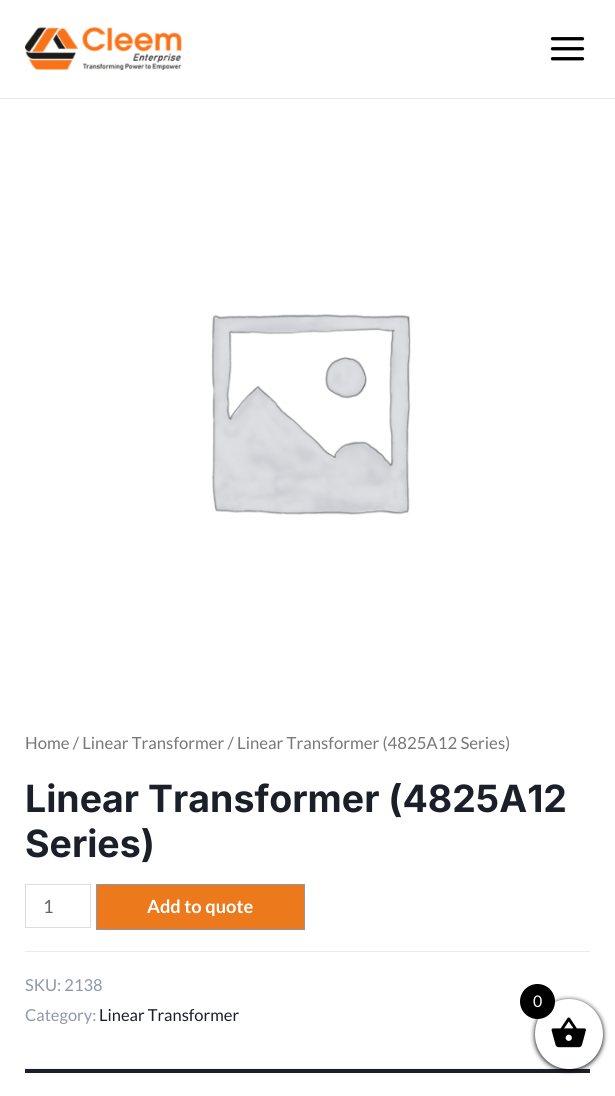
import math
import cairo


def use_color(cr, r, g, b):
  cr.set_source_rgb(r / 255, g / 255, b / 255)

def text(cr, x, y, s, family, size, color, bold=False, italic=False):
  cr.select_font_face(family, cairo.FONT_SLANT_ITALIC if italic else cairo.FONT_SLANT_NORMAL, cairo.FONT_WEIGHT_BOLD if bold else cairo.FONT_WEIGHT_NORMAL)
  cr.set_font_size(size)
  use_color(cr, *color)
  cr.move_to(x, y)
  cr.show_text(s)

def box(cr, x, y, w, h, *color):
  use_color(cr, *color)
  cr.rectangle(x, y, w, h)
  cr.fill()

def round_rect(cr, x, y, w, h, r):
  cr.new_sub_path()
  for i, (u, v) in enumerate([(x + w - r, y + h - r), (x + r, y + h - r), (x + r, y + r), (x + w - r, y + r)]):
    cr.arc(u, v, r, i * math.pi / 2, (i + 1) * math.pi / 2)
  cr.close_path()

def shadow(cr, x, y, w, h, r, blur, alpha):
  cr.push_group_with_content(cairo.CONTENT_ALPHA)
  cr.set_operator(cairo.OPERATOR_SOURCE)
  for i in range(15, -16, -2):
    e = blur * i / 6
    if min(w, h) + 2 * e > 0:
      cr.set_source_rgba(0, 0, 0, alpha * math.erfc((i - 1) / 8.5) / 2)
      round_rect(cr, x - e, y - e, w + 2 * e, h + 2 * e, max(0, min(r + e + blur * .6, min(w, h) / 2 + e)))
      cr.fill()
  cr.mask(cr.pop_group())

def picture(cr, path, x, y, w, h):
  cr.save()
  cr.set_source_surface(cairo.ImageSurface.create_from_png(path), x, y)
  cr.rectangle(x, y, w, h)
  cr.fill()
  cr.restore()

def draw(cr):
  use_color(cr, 255, 255, 255)
  cr.paint()
  box(cr, 0, 98, 615, 1, 226, 231, 240)
  picture(cr, "img_01.png", 25, 27, 157, 43)
  picture(cr, "img_02.png", 550, 37, 35, 24)
  picture(cr, "img_03.png", 211, 314, 200, 201)
  cr.rectangle(25.5, 884.5, 65, 43)
  use_color(cr, 221, 221, 221)
  cr.set_line_width(1)
  cr.stroke()
  use_color(cr, 236, 121, 27)
  cr.rectangle(96.5, 884.5, 208, 45)
  cr.fill_preserve()
  use_color(cr, 144, 151, 170)
  cr.stroke()
  box(cr, 25, 951, 565, 1, 235, 235, 235)
  box(cr, 25, 1068, 565, 1, 242, 242, 242)
  box(cr, 25, 1069, 565, 4, 27, 31, 41)
  use_color(cr, 0, 0, 0)
  shadow(cr, 535, 1000, 68, 70, 34, 2.5, 1)
  use_color(cr, 255, 255, 255)
  cr.new_path()
  cr.move_to(569, 999)
  cr.curve_to(588, 999, 603, 1014.5, 603, 1034)
  cr.curve_to(603, 1053.5, 588, 1069, 569, 1069)
  cr.curve_to(550, 1069, 535, 1053.5, 535, 1034)
  cr.curve_to(535, 1014.5, 550, 999, 569, 999)
  cr.close_path()
  cr.fill()
  use_color(cr, 0, 0, 0)
  cr.arc(537.5, 1001.5, 17.5, 0, 2 * math.pi)
  cr.fill()
  picture(cr, "img_04.png", 551, 1017, 35, 31)
  text(cr, 25, 749, "Home / Linear Transformer / Linear Transformer (4825A12 Series)", "Lato", 16.75, (119, 119, 119))
  text(cr, 25, 812, "Linear Transformer (4825A12", "Inter", 37.5, (27, 31, 41), bold=True)
  text(cr, 25, 857, "Series)", "Inter", 37.5, (27, 31, 41), bold=True)
  text(cr, 43, 913, "1", "Lato", 18.25, (102, 102, 102))
  text(cr, 147, 913, "Add to quote", "Lato", 18.25, (255, 255, 255), bold=True)
  text(cr, 25, 991, "SKU: 2138", "Lato", 16.5, (144, 151, 170))
  text(cr, 25, 1021, "Category:", "Lato", 16.5, (144, 151, 170))
  text(cr, 99, 1021, "Linear Transformer", "Lato", 16.5, (27, 31, 41))
  text(cr, 533, 1007, "0", "Lato", 16, (255, 255, 255))


surface = cairo.ImageSurface(cairo.FORMAT_RGB24, 615, 1096)
cr = cairo.Context(surface)
options = cairo.FontOptions()
options.set_hint_metrics(cairo.HINT_METRICS_OFF)
options.set_hint_style(cairo.HINT_STYLE_NONE)
cr.set_font_options(options)
cr.set_miter_limit(4)
draw(cr)
surface.write_to_png("out.png")
